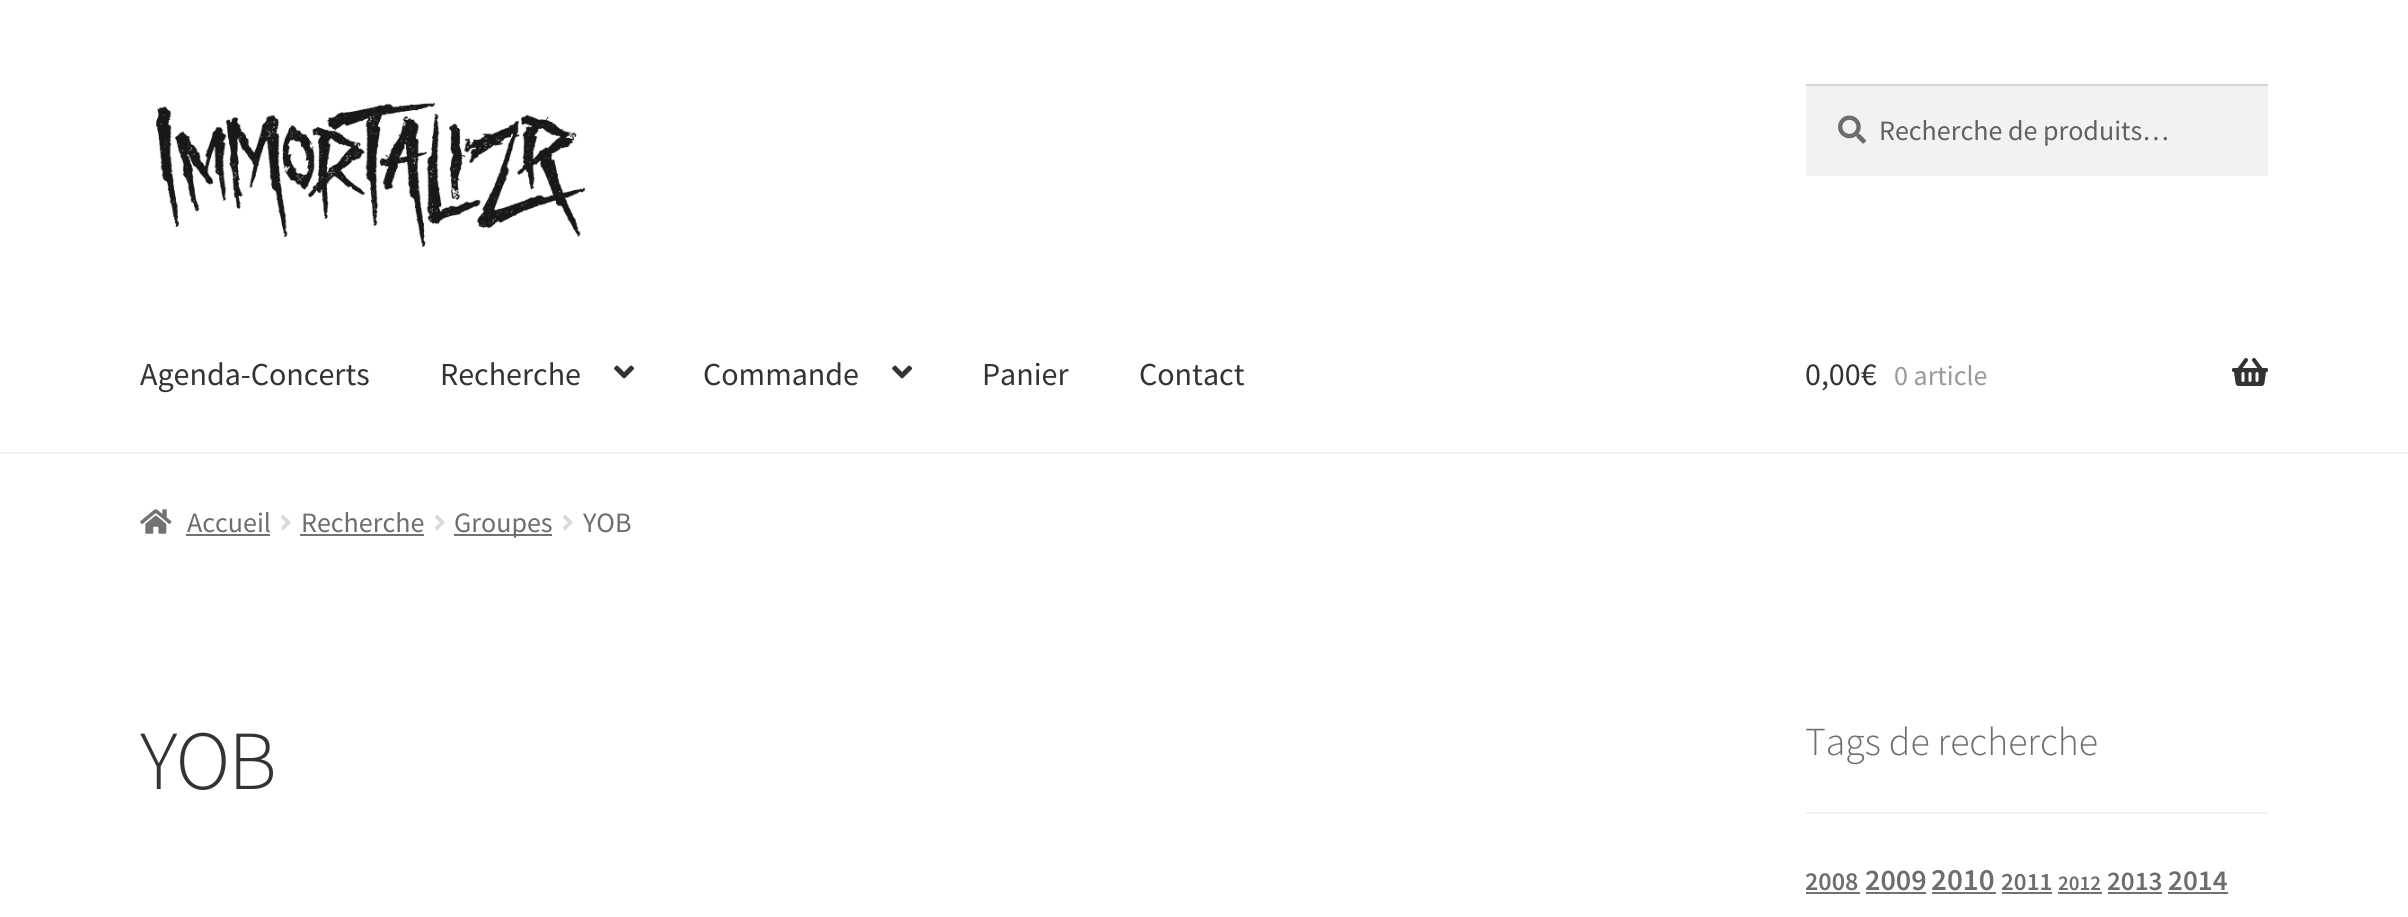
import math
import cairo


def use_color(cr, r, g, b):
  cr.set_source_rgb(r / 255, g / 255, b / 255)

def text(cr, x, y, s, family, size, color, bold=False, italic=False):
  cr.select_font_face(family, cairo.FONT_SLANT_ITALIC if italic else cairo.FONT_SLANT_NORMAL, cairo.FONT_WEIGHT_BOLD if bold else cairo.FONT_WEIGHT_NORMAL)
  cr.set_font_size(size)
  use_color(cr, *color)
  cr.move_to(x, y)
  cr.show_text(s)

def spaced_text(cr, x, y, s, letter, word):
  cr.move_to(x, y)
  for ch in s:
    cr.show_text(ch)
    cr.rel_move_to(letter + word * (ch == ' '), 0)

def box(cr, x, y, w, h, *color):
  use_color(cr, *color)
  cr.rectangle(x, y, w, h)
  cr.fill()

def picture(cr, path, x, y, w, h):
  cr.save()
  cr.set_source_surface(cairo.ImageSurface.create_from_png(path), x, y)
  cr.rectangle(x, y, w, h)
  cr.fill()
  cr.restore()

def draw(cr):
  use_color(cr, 255, 255, 255)
  cr.paint()
  box(cr, 0, 452, 2408, 2, 240, 240, 240)
  picture(cr, "img_01.png", 156, 102, 429, 145)
  box(cr, 1806, 86, 462, 90, 242, 242, 242)
  picture(cr, "img_02.png", 1838, 115, 28, 29)
  box(cr, 1806, 84, 462, 2, 212, 212, 212)
  picture(cr, "img_03.png", 614, 365, 20, 14)
  picture(cr, "img_03.png", 892, 365, 20, 14)
  picture(cr, "img_04.png", 2232, 358, 36, 28)
  picture(cr, "img_05.png", 140, 509, 32, 25)
  box(cr, 186, 534, 84, 2, 114, 114, 114)
  picture(cr, "img_06.png", 281, 515, 10, 16)
  box(cr, 300, 534, 124, 2, 114, 114, 114)
  picture(cr, "img_06.png", 435, 515, 10, 16)
  box(cr, 454, 534, 98, 2, 114, 114, 114)
  picture(cr, "img_06.png", 563, 515, 10, 16)
  box(cr, 1806, 812, 462, 2, 242, 242, 242)
  box(cr, 1806, 892, 54, 2, 114, 114, 114)
  box(cr, 1866, 892, 60, 2, 114, 114, 114)
  box(cr, 1932, 892, 64, 2, 114, 114, 114)
  box(cr, 2002, 892, 50, 2, 114, 114, 114)
  box(cr, 2058, 892, 44, 2, 114, 114, 114)
  box(cr, 2108, 892, 54, 2, 114, 114, 114)
  box(cr, 2168, 892, 60, 2, 114, 114, 114)
  text(cr, 1879, 140, "Recherche de produits…", "Source Sans Pro", 28, (97, 97, 97))
  text(cr, 140, 385, "Agenda-Concerts", "Source Sans Pro", 32, (51, 51, 51))
  text(cr, 440, 385, "Recherche", "Source Sans Pro", 32, (51, 51, 51))
  text(cr, 703, 385, "Commande", "Source Sans Pro", 32, (51, 51, 51))
  text(cr, 982, 385, "Panier", "Source Sans Pro", 32, (51, 51, 51))
  text(cr, 1139, 385, "Contact", "Source Sans Pro", 32, (51, 51, 51))
  text(cr, 1805, 385, "0,00€", "Source Sans Pro", 32, (51, 51, 51))
  text(cr, 1894, 385, "0 article", "Source Sans Pro", 28, (153, 153, 153))
  text(cr, 187, 532, "Accueil", "Source Sans Pro", 28, (109, 109, 109))
  text(cr, 301, 532, "Recherche", "Source Sans Pro", 28, (109, 109, 109))
  text(cr, 454, 532, "Groupes", "Source Sans Pro", 28, (109, 109, 109))
  text(cr, 583, 532, "YOB", "Source Sans Pro", 28, (109, 109, 109))
  cr.select_font_face("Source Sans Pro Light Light")
  cr.set_font_size(84)
  use_color(cr, 51, 51, 51)
  spaced_text(cr, 140, 789, "YOB", -2, 0)
  text(cr, 1805, 755, "Tags de recherche", "Source Sans Pro Light Light", 39.75, (109, 109, 109))
  text(cr, 1805, 890, "2008", "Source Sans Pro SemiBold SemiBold", 26, (109, 109, 109))
  text(cr, 1865, 890, "2009", "Source Sans Pro SemiBold SemiBold", 30, (109, 109, 109))
  text(cr, 1931, 890, "2010", "Source Sans Pro SemiBold SemiBold", 31, (109, 109, 109))
  text(cr, 2001, 890, "2011", "Source Sans Pro SemiBold SemiBold", 25, (109, 109, 109))
  text(cr, 2058, 890, "2012", "Source Sans Pro SemiBold SemiBold", 21, (109, 109, 109))
  text(cr, 2107, 890, "2013", "Source Sans Pro SemiBold SemiBold", 27, (109, 109, 109))
  text(cr, 2168, 890, "2014", "Source Sans Pro SemiBold SemiBold", 29, (109, 109, 109))


surface = cairo.ImageSurface(cairo.FORMAT_RGB24, 2408, 917)
cr = cairo.Context(surface)
options = cairo.FontOptions()
options.set_hint_metrics(cairo.HINT_METRICS_OFF)
options.set_hint_style(cairo.HINT_STYLE_NONE)
cr.set_font_options(options)
cr.set_miter_limit(4)
draw(cr)
surface.write_to_png("out.png")
